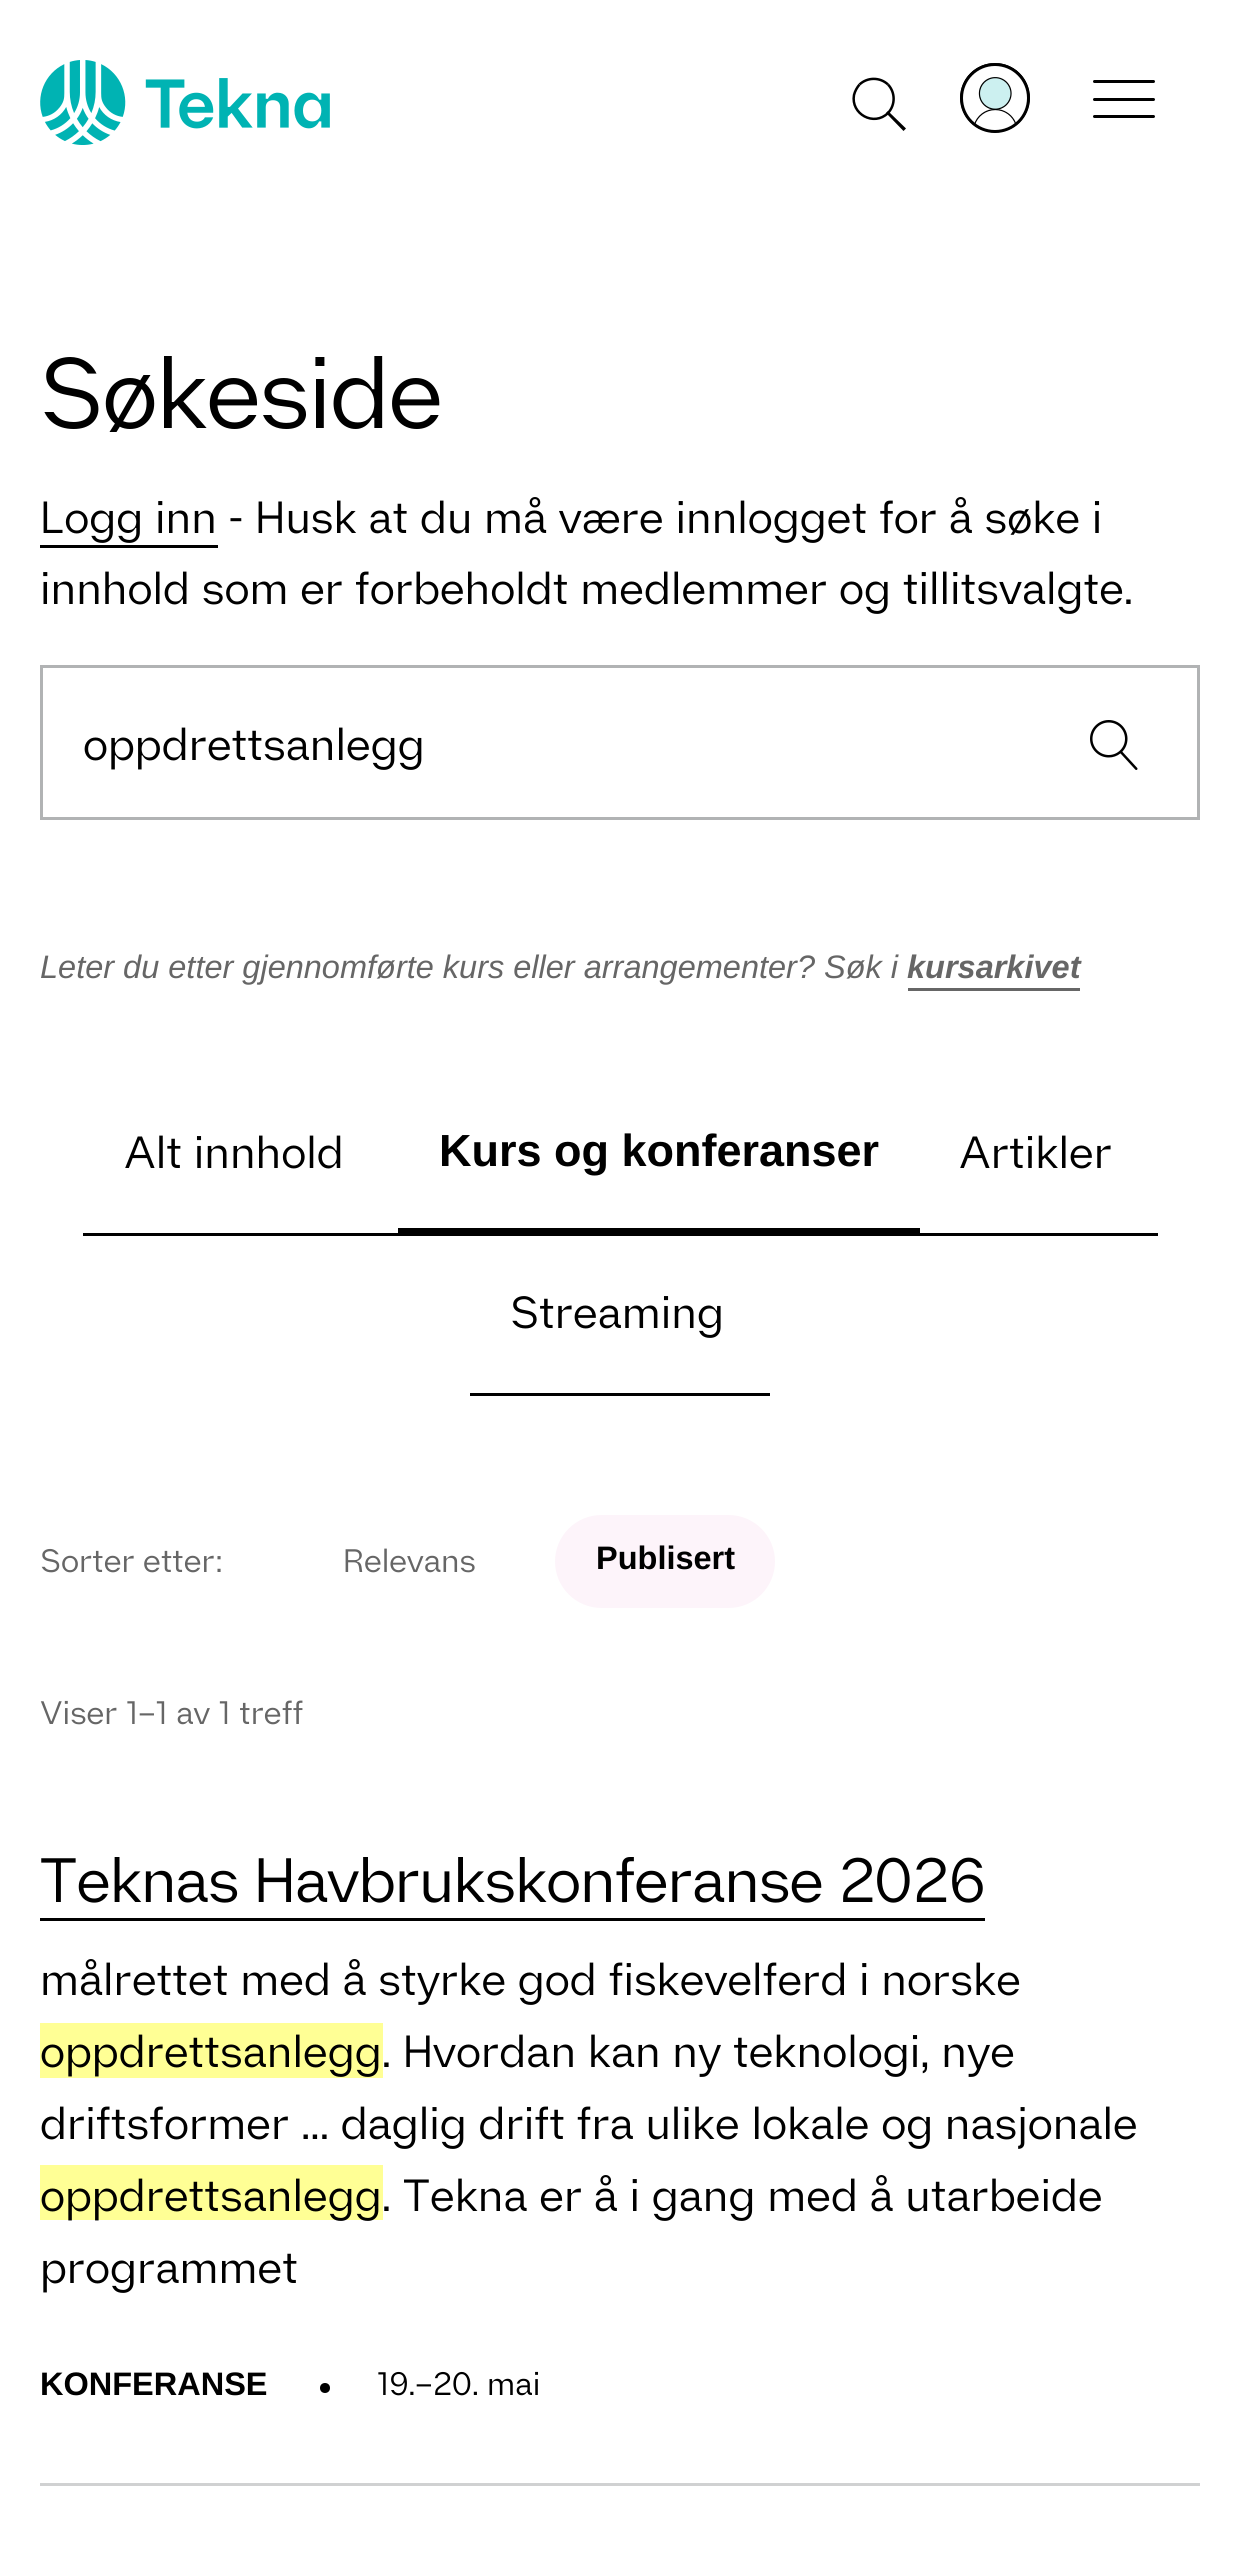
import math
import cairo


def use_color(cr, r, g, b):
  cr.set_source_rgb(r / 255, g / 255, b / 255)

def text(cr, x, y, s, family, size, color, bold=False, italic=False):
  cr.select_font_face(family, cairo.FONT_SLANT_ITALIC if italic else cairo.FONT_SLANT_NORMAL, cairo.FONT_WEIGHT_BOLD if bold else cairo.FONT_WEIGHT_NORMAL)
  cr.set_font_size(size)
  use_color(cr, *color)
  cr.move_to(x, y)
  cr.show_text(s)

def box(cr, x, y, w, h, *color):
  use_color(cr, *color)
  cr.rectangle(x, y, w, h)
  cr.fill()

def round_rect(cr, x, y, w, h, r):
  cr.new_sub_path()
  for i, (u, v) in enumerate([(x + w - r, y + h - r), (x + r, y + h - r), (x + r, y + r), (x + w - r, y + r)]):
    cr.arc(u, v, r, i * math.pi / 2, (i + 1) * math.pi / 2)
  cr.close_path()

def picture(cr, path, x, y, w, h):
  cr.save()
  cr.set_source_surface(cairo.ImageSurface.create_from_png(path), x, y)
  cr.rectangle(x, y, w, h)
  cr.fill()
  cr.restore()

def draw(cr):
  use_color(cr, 255, 255, 255)
  cr.paint()
  picture(cr, "img_01.png", 40, 60, 290, 85)
  cr.save()
  cr.new_path()
  cr.move_to(843.5, 99)
  cr.line_to(858.5, 83.5)
  cr.line_to(889, 114)
  cr.line_to(873.5, 129)
  cr.close_path()
  cr.clip()
  cr.new_path()
  cr.move_to(888, 113)
  cr.curve_to(874, 127, 850.5, 114, 854, 95)
  cr.curve_to(855, 91, 857, 87.5, 859.5, 84.5)
  use_color(cr, 0, 0, 0)
  cr.set_line_width(2.5)
  cr.stroke()
  cr.restore()
  cr.save()
  cr.new_path()
  cr.move_to(858.5, 83.5)
  cr.line_to(874, 68.5)
  cr.line_to(889, 83.5)
  cr.line_to(874, 98.5)
  cr.close_path()
  cr.clip()
  cr.new_path()
  cr.move_to(859.5, 84.5)
  cr.curve_to(867.5, 77, 880, 77, 888, 84.5)
  use_color(cr, 0, 0, 0)
  cr.set_line_width(2.5)
  cr.stroke()
  cr.restore()
  cr.save()
  cr.new_path()
  cr.move_to(874, 98.5)
  cr.line_to(889, 83.5)
  cr.line_to(904, 98.5)
  cr.line_to(889, 114)
  cr.close_path()
  cr.clip()
  cr.new_path()
  cr.move_to(888, 84.5)
  cr.curve_to(895.5, 92.5, 895.5, 105, 888, 113)
  use_color(cr, 0, 0, 0)
  cr.set_line_width(2.5)
  cr.stroke()
  cr.restore()
  use_color(cr, 0, 0, 0)
  cr.new_path()
  cr.move_to(886, 113)
  cr.line_to(888, 111)
  cr.line_to(906, 128.5)
  cr.line_to(903.5, 131)
  cr.close_path()
  cr.fill()
  picture(cr, "img_02.png", 960, 63, 70, 70)
  cr.arc(995, 98, 33.5, 0, 2 * math.pi)
  cr.set_line_width(3)
  cr.stroke()
  round_rect(cr, 1093, 98, 62, 3, 1.5)
  cr.fill()
  round_rect(cr, 1093, 80, 62, 3, 1.5)
  cr.fill()
  round_rect(cr, 1093, 115, 62, 3, 1.5)
  cr.fill()
  box(cr, 40, 545, 178, 3, 0, 0, 0)
  cr.rectangle(41.5, 666.5, 1157, 152)
  use_color(cr, 177, 179, 180)
  cr.stroke()
  picture(cr, "img_03.png", 1090, 720, 48, 50)
  box(cr, 908, 988, 172, 3, 102, 102, 102)
  box(cr, 83, 1233, 315, 3, 0, 0, 0)
  box(cr, 398, 1228, 522, 8, 0, 0, 0)
  box(cr, 920, 1233, 238, 3, 0, 0, 0)
  box(cr, 470, 1393, 300, 3, 0, 0, 0)
  use_color(cr, 253, 244, 250)
  round_rect(cr, 555, 1515, 220, 93, 46.5)
  cr.fill()
  box(cr, 40, 2483, 1160, 3, 208, 209, 210)
  box(cr, 40, 1918, 945, 3, 0, 0, 0)
  box(cr, 40, 2023, 343, 55, 255, 255, 149)
  box(cr, 40, 2165, 343, 55, 255, 255, 149)
  use_color(cr, 0, 0, 0)
  cr.arc(325, 2388, 5, 0, 2 * math.pi)
  cr.fill()
  text(cr, 40, 428, "Søkeside", "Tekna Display", 100, (0, 0, 0))
  text(cr, 40, 533, "Logg inn - Husk at du må være innlogget for å søke i", "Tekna", 45, (0, 0, 0))
  text(cr, 40, 604, "innhold som er forbeholdt medlemmer og tillitsvalgte.", "Tekna", 45, (0, 0, 0))
  text(cr, 83, 760, "oppdrettsanlegg", "Tekna", 45, (0, 0, 0))
  text(cr, 40, 978, "Leter du etter gjennomførte kurs eller arrangementer? Søk i", "Liberation Sans", 32.5, (102, 102, 102), italic=True)
  text(cr, 907, 978, "kursarkivet", "Liberation Sans", 32.5, (102, 102, 102), bold=True, italic=True)
  text(cr, 124, 1168, "Alt innhold", "Tekna", 45, (0, 0, 0))
  text(cr, 439, 1166, "Kurs og konferanser", "Liberation Sans", 45, (0, 0, 0), bold=True)
  text(cr, 959, 1168, "Artikler", "Tekna", 45, (0, 0, 0))
  text(cr, 510, 1328, "Streaming", "Tekna", 45, (0, 0, 0))
  text(cr, 40, 1572, "Sorter etter:", "Tekna", 32.5, (102, 102, 102))
  text(cr, 343, 1572, "Relevans", "Tekna", 32.5, (102, 102, 102))
  text(cr, 596, 1569, "Publisert", "Liberation Sans", 32.5, (0, 0, 0), bold=True)
  text(cr, 40, 1724, "Viser 1–1 av 1 treff", "Tekna", 32.5, (102, 102, 102))
  text(cr, 40, 1902, "Teknas Havbrukskonferanse 2026", "Tekna Display", 62.5, (0, 0, 0))
  text(cr, 40, 1995, "målrettet med å styrke god fiskevelferd i norske", "Tekna", 45, (0, 0, 0))
  text(cr, 40, 2067, "oppdrettsanlegg. Hvordan kan ny teknologi, nye", "Tekna", 45, (0, 0, 0))
  text(cr, 40, 2139, "driftsformer ... daglig drift fra ulike lokale og nasjonale", "Tekna", 45, (0, 0, 0))
  text(cr, 40, 2211, "oppdrettsanlegg. Tekna er å i gang med å utarbeide", "Tekna", 45, (0, 0, 0))
  text(cr, 40, 2283, "programmet", "Tekna", 45, (0, 0, 0))
  text(cr, 40, 2395, "KONFERANSE", "Liberation Sans", 32.5, (0, 0, 0), bold=True)
  text(cr, 377, 2395, "19.–20. mai", "Tekna", 32.5, (0, 0, 0))


surface = cairo.ImageSurface(cairo.FORMAT_RGB24, 1239, 2555)
cr = cairo.Context(surface)
options = cairo.FontOptions()
options.set_hint_metrics(cairo.HINT_METRICS_OFF)
options.set_hint_style(cairo.HINT_STYLE_NONE)
cr.set_font_options(options)
cr.set_miter_limit(4)
draw(cr)
surface.write_to_png("out.png")
